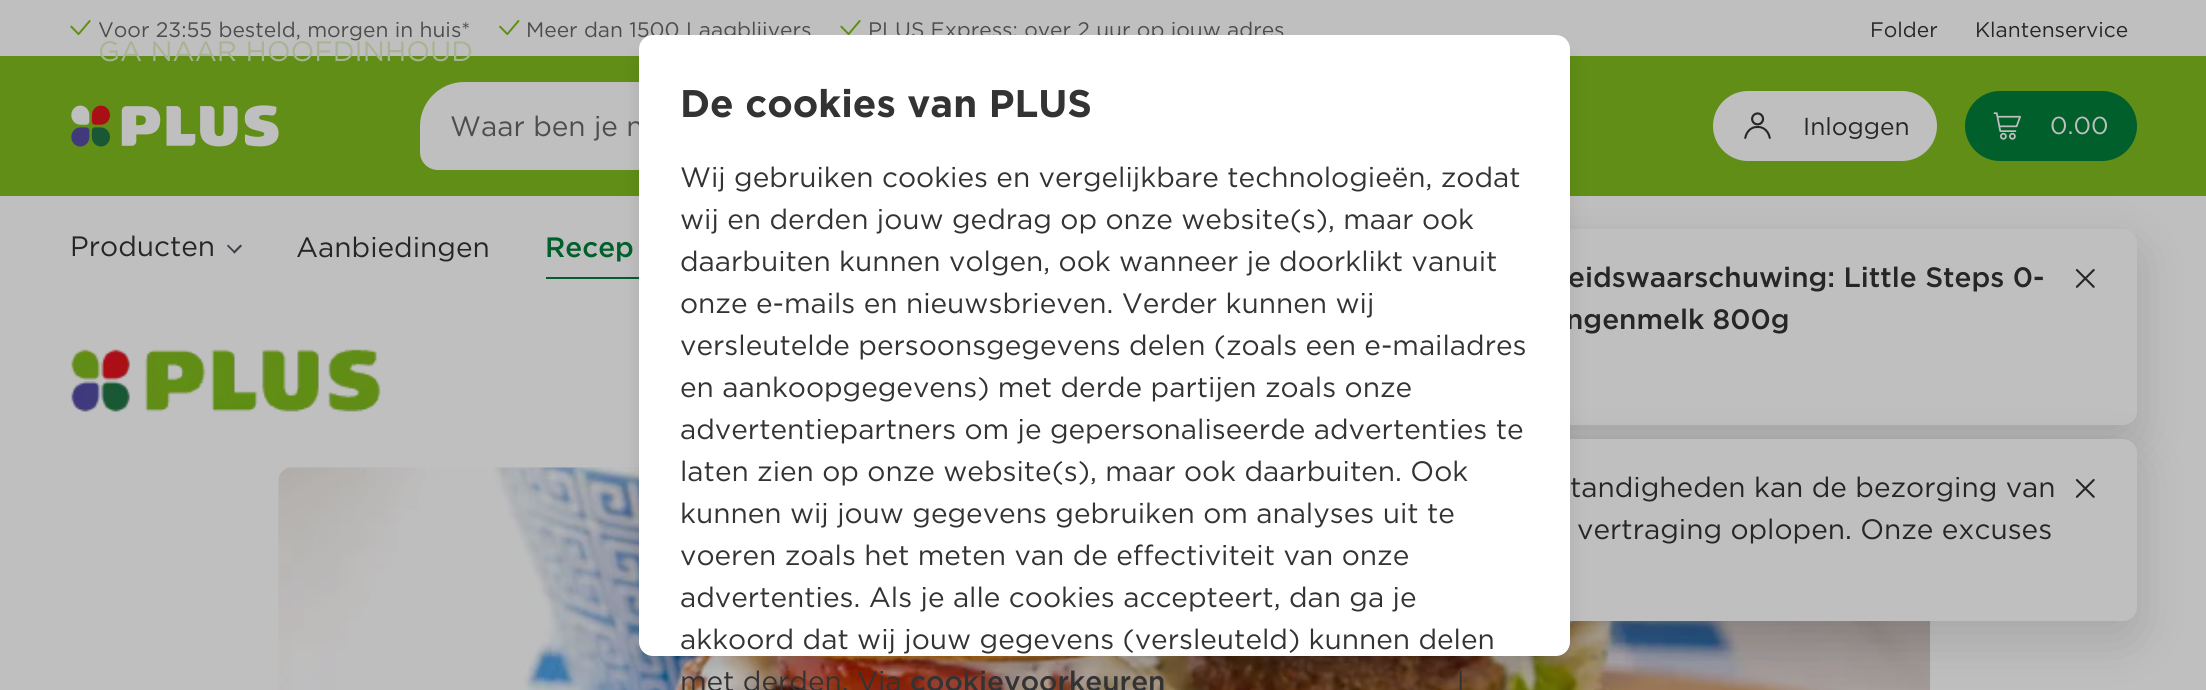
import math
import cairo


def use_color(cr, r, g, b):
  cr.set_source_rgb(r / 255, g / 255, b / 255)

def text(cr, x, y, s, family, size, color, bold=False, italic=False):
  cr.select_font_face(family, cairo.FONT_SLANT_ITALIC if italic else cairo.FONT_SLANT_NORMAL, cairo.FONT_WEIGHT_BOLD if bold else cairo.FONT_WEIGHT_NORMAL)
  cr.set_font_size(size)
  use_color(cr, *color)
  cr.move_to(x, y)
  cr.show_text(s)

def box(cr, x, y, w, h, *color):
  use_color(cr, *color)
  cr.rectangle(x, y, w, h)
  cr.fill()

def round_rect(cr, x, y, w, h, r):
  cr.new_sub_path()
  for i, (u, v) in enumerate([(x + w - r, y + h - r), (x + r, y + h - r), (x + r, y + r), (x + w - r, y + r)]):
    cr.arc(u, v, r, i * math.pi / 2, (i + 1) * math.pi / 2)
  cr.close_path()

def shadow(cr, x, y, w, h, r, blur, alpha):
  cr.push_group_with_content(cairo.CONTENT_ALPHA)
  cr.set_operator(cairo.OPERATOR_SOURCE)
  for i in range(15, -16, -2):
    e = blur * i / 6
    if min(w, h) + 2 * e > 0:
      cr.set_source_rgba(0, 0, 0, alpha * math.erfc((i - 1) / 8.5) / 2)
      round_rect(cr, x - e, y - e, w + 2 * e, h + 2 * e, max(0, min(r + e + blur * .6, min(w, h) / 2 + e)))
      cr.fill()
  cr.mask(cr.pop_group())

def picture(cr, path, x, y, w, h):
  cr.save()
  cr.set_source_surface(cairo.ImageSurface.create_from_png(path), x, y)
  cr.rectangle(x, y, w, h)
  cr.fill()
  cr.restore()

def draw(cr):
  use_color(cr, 191, 191, 191)
  cr.paint()
  picture(cr, "img_01.png", 70, 20, 21, 16)
  picture(cr, "img_02.png", 499, 20, 21, 16)
  picture(cr, "img_03.png", 840, 20, 21, 15)
  box(cr, 0, 56, 2206, 140, 96, 142, 22)
  picture(cr, "img_04.png", 71, 105, 208, 42)
  use_color(cr, 191, 191, 191)
  cr.new_path()
  cr.move_to(464, 83)
  cr.line_to(1321, 83)
  cr.curve_to(1344.5, 83, 1364, 102.5, 1364, 126)
  cr.curve_to(1364, 149.5, 1344.5, 169, 1321, 169)
  cr.line_to(438, 169)
  cr.curve_to(428.5, 169, 421, 161.5, 421, 152)
  cr.line_to(421, 126)
  cr.curve_to(421, 102.5, 440.5, 83, 464, 83)
  cr.close_path()
  cr.fill_preserve()
  cr.stroke()
  round_rect(cr, 1713, 91, 224, 70, 35)
  cr.fill()
  picture(cr, "img_05.png", 1744, 112, 27, 27)
  use_color(cr, 0, 95, 42)
  round_rect(cr, 1965, 91, 172, 70, 35)
  cr.fill()
  picture(cr, "img_06.png", 1993, 112, 28, 28)
  use_color(cr, 59, 65, 71)
  cr.new_path()
  cr.move_to(233, 252)
  cr.line_to(240.5, 244.5)
  cr.line_to(242, 246)
  cr.line_to(234.5, 253.5)
  cr.close_path()
  cr.fill()
  cr.new_path()
  cr.move_to(227, 246)
  cr.line_to(228, 244.5)
  cr.line_to(235.5, 252)
  cr.line_to(234.5, 253.5)
  cr.close_path()
  cr.fill()
  box(cr, 546, 277, 93, 2, 0, 95, 42)
  picture(cr, "img_07.png", 71, 349, 310, 63)
  picture(cr, "img_08.png", 278, 467, 1653, 223)
  use_color(cr, 0, 0, 0)
  shadow(cr, 1201, 247, 936, 196, 14, 26, 0.14)
  use_color(cr, 191, 191, 191)
  round_rect(cr, 1201, 229, 936, 196, 14)
  cr.fill()
  picture(cr, "img_09.png", 2075, 269, 20, 19)
  use_color(cr, 0, 0, 0)
  shadow(cr, 1201, 457, 936, 182, 14, 26, 0.14)
  use_color(cr, 191, 191, 191)
  round_rect(cr, 1201, 439, 936, 182, 14)
  cr.fill()
  picture(cr, "img_09.png", 2075, 479, 20, 19)
  use_color(cr, 0, 0, 0)
  shadow(cr, 639, 49, 931, 621, 14, 9, 0.1)
  text(cr, 98, 37, "Voor 23:55 besteld, morgen in huis*", "Gotham", 21, (77, 77, 77))
  text(cr, 526, 37, "Meer dan 1500 Laagblijvers", "Gotham", 21, (77, 77, 77))
  text(cr, 868, 37, "PLUS Express: over 2 uur op jouw adres", "Gotham", 21, (77, 77, 77))
  text(cr, 1870, 37, "Folder", "Gotham", 21, (38, 38, 38))
  text(cr, 1975, 37, "Klantenservice", "Gotham", 21, (38, 38, 38))
  text(cr, 450, 136, "Waar ben je n", "Gotham", 28, (77, 77, 77))
  text(cr, 1803, 135, "Inloggen", "Gotham", 24.5, (38, 38, 38))
  text(cr, 2050, 134, "0.00", "Gotham", 24.5, (191, 191, 191))
  text(cr, 70, 256, "Producten", "Gotham", 28, (38, 38, 38))
  text(cr, 296, 257, "Aanbiedingen", "Gotham", 28, (38, 38, 38))
  text(cr, 545, 257, "Recep", "Gotham Medium", 28, (0, 95, 42))
  text(cr, 98, 61, "GA NAAR HOOFDINHOUD", "Gotham", 28, (167, 179, 147))
  text(cr, 1568, 287, "eidswaarschuwing: Little Steps 0-", "Gotham Medium", 28, (38, 38, 38))
  text(cr, 1566, 329, "ngenmelk 800g", "Gotham Medium", 28, (38, 38, 38))
  text(cr, 1570, 497, "tandigheden kan de bezorging van", "Gotham", 28, (38, 38, 38))
  text(cr, 1577, 539, "vertraging oplopen. Onze excuses", "Gotham", 28, (38, 38, 38))
  use_color(cr, 255, 255, 255)
  round_rect(cr, 639, 35, 931, 621, 14)
  cr.fill()
  text(cr, 680, 117, "De cookies van PLUS", "Gotham", 38.5, (51, 51, 51), bold=True)
  text(cr, 680, 187, "Wij gebruiken cookies en vergelijkbare technologieën, zodat", "Gotham", 28, (51, 51, 51))
  text(cr, 680, 229, "wij en derden jouw gedrag op onze website(s), maar ook", "Gotham", 28, (51, 51, 51))
  text(cr, 680, 271, "daarbuiten kunnen volgen, ook wanneer je doorklikt vanuit", "Gotham", 28, (51, 51, 51))
  text(cr, 680, 313, "onze e-mails en nieuwsbrieven. Verder kunnen wij", "Gotham", 28, (51, 51, 51))
  text(cr, 680, 355, "versleutelde persoonsgegevens delen (zoals een e-mailadres", "Gotham", 28, (51, 51, 51))
  text(cr, 680, 397, "en aankoopgegevens) met derde partijen zoals onze", "Gotham", 28, (51, 51, 51))
  text(cr, 680, 439, "advertentiepartners om je gepersonaliseerde advertenties te", "Gotham", 28, (51, 51, 51))
  text(cr, 680, 481, "laten zien op onze website(s), maar ook daarbuiten. Ook", "Gotham", 28, (51, 51, 51))
  text(cr, 680, 523, "kunnen wij jouw gegevens gebruiken om analyses uit te", "Gotham", 28, (51, 51, 51))
  text(cr, 680, 565, "voeren zoals het meten van de effectiviteit van onze", "Gotham", 28, (51, 51, 51))
  text(cr, 680, 607, "advertenties. Als je alle cookies accepteert, dan ga je", "Gotham", 28, (51, 51, 51))
  text(cr, 680, 649, "akkoord dat wij jouw gegevens (versleuteld) kunnen delen", "Gotham", 28, (51, 51, 51))
  text(cr, 680, 691, "met derden. Via", "Gotham", 28, (51, 51, 51))
  text(cr, 910, 691, "cookievoorkeuren", "Gotham Medium", 28, (51, 51, 51))
  text(cr, 1457, 691, "l", "Gotham", 28, (51, 51, 51))


surface = cairo.ImageSurface(cairo.FORMAT_RGB24, 2206, 690)
cr = cairo.Context(surface)
options = cairo.FontOptions()
options.set_hint_metrics(cairo.HINT_METRICS_OFF)
options.set_hint_style(cairo.HINT_STYLE_NONE)
cr.set_font_options(options)
cr.set_miter_limit(4)
draw(cr)
surface.write_to_png("out.png")
